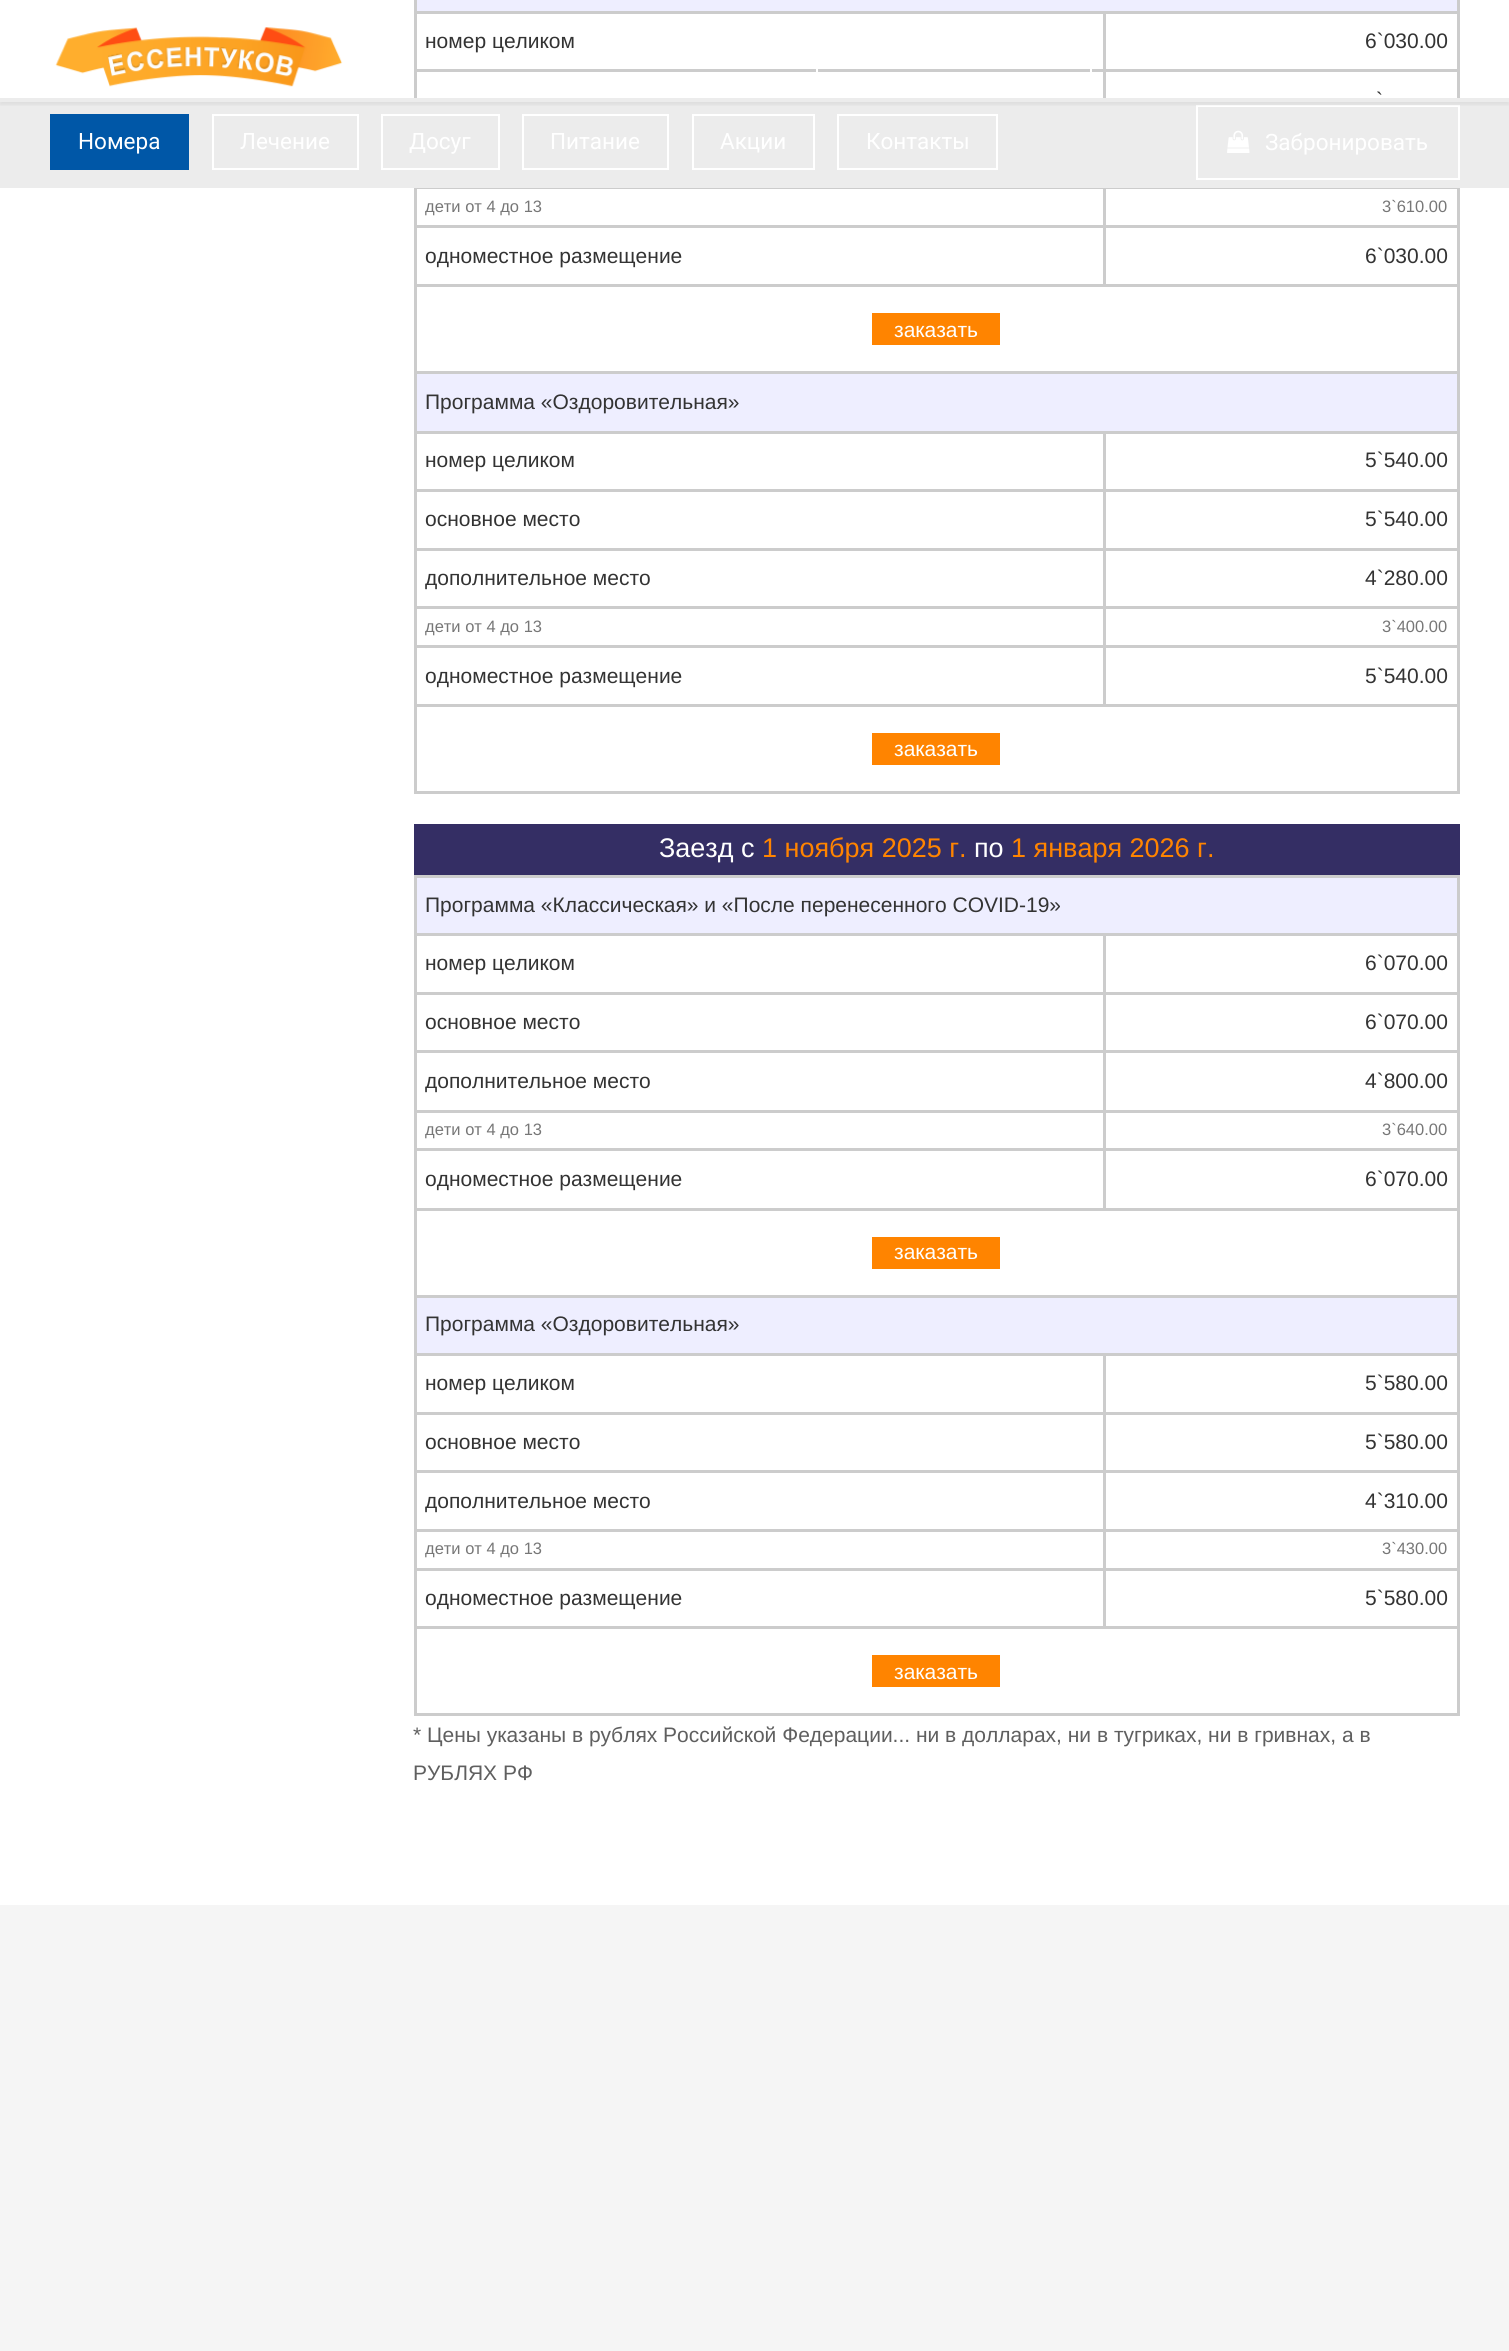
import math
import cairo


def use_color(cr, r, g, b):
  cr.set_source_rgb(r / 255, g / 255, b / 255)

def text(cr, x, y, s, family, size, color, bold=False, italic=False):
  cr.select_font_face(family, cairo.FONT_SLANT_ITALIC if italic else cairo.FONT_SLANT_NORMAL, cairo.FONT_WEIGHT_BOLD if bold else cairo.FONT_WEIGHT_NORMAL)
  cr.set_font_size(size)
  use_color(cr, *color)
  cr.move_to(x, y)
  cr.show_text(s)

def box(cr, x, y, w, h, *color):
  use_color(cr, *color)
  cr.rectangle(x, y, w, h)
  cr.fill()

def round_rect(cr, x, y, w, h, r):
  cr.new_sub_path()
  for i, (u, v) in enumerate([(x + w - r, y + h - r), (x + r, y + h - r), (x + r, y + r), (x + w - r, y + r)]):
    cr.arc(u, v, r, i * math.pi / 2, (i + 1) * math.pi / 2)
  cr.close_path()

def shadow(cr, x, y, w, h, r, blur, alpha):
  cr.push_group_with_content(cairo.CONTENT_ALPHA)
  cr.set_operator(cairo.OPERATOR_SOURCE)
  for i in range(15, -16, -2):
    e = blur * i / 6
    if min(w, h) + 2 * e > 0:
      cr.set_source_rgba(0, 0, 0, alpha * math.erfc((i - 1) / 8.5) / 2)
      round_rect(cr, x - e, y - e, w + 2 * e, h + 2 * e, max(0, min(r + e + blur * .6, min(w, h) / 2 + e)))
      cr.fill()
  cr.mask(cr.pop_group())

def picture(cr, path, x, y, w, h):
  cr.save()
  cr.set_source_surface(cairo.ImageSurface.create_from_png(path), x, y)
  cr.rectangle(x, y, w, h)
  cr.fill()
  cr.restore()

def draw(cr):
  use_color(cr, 255, 255, 255)
  cr.paint()
  box(cr, 414, 0, 3, 794, 204, 204, 204)
  box(cr, 417, 0, 1040, 11, 238, 238, 255)
  box(cr, 1457, 0, 3, 98, 204, 204, 204)
  box(cr, 417, 11, 1043, 3, 204, 204, 204)
  box(cr, 1103, 14, 3, 84, 204, 204, 204)
  box(cr, 417, 69, 1043, 3, 204, 204, 204)
  box(cr, 0, 98, 1509, 90, 236, 236, 236)
  cr.rectangle(1197, 106, 262, 73)
  use_color(cr, 255, 255, 255)
  cr.stroke()
  cr.save()
  cr.rectangle(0, 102, 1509, 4)
  cr.clip()
  use_color(cr, 100, 100, 100)
  shadow(cr, 0, 3, 1509, 102, 0, 1.5, 0.1)
  cr.restore()
  picture(cr, "img_01.png", 55, 27, 288, 60)
  cr.rectangle(817, 16, 274, 64)
  cr.stroke()
  box(cr, 417, 188, 1043, 1, 204, 204, 204)
  box(cr, 1103, 189, 3, 98, 204, 204, 204)
  box(cr, 1457, 189, 3, 420, 204, 204, 204)
  box(cr, 417, 225, 1043, 3, 204, 204, 204)
  box(cr, 417, 284, 689, 3, 204, 204, 204)
  box(cr, 1106, 284, 354, 3, 204, 204, 204)
  box(cr, 417, 371, 1043, 3, 204, 204, 204)
  box(cr, 872, 313, 128, 32, 255, 132, 0)
  box(cr, 417, 374, 1040, 57, 238, 238, 255)
  box(cr, 417, 431, 1043, 3, 204, 204, 204)
  box(cr, 1103, 434, 3, 175, 204, 204, 204)
  box(cr, 417, 489, 1043, 3, 204, 204, 204)
  box(cr, 417, 548, 1043, 3, 204, 204, 204)
  box(cr, 417, 606, 1043, 3, 204, 204, 204)
  box(cr, 1103, 609, 3, 98, 204, 204, 204)
  box(cr, 1457, 609, 3, 185, 204, 204, 204)
  box(cr, 417, 645, 1043, 3, 204, 204, 204)
  box(cr, 417, 704, 689, 3, 204, 204, 204)
  box(cr, 1106, 704, 354, 3, 204, 204, 204)
  box(cr, 417, 791, 1043, 3, 204, 204, 204)
  box(cr, 872, 733, 128, 32, 255, 132, 0)
  box(cr, 414, 824, 1046, 51, 52, 46, 100)
  box(cr, 414, 875, 1046, 3, 204, 204, 204)
  box(cr, 414, 875, 3, 841, 204, 204, 204)
  box(cr, 417, 878, 1040, 55, 238, 238, 255)
  box(cr, 1457, 878, 3, 235, 204, 204, 204)
  box(cr, 417, 933, 1043, 3, 204, 204, 204)
  box(cr, 1103, 936, 3, 177, 204, 204, 204)
  box(cr, 417, 992, 1043, 3, 204, 204, 204)
  box(cr, 417, 1050, 1043, 3, 204, 204, 204)
  box(cr, 417, 1110, 1043, 3, 204, 204, 204)
  box(cr, 1103, 1113, 3, 98, 204, 204, 204)
  box(cr, 1457, 1113, 3, 419, 204, 204, 204)
  box(cr, 417, 1148, 1043, 3, 204, 204, 204)
  box(cr, 417, 1208, 689, 3, 204, 204, 204)
  box(cr, 1106, 1208, 354, 3, 204, 204, 204)
  box(cr, 417, 1295, 1043, 3, 204, 204, 204)
  box(cr, 872, 1237, 128, 32, 255, 132, 0)
  box(cr, 417, 1298, 1040, 55, 238, 238, 255)
  box(cr, 417, 1353, 1043, 3, 204, 204, 204)
  box(cr, 1103, 1356, 3, 176, 204, 204, 204)
  box(cr, 417, 1412, 1043, 3, 204, 204, 204)
  box(cr, 417, 1470, 1043, 3, 204, 204, 204)
  box(cr, 417, 1529, 1043, 3, 204, 204, 204)
  box(cr, 1103, 1532, 3, 97, 204, 204, 204)
  box(cr, 1457, 1532, 3, 184, 204, 204, 204)
  box(cr, 417, 1568, 1043, 3, 204, 204, 204)
  box(cr, 417, 1626, 689, 3, 204, 204, 204)
  box(cr, 1106, 1626, 354, 3, 204, 204, 204)
  box(cr, 417, 1713, 1043, 3, 204, 204, 204)
  box(cr, 872, 1655, 128, 32, 255, 132, 0)
  box(cr, 50, 114, 139, 56, 0, 87, 167)
  cr.rectangle(213, 115, 145, 54)
  use_color(cr, 255, 255, 255)
  cr.stroke()
  cr.rectangle(382, 115, 117, 54)
  cr.stroke()
  cr.rectangle(523, 115, 145, 54)
  cr.stroke()
  cr.rectangle(693, 115, 121, 54)
  cr.stroke()
  cr.rectangle(838, 115, 159, 54)
  cr.stroke()
  picture(cr, "img_02.png", 1227, 130, 23, 23)
  box(cr, 0, 1905, 1509, 446, 245, 245, 245)
  text(cr, 425, 48, "номер целиком", "Liberation Sans", 21, (51, 51, 51))
  text(cr, 1365, 48, "6`030.00", "Liberation Sans", 21, (51, 51, 51))
  text(cr, 1376, 107, "`", "Liberation Sans", 21, (51, 51, 51))
  text(cr, 425, 212, "дети от 4 до 13", "Liberation Sans", 16.5, (119, 119, 119))
  text(cr, 1382, 212, "3`610.00", "Liberation Sans", 16.5, (119, 119, 119))
  text(cr, 425, 263, "одноместное размещение", "Liberation Sans", 21, (51, 51, 51))
  text(cr, 1365, 263, "6`030.00", "Liberation Sans", 21, (51, 51, 51))
  text(cr, 894, 337, "заказать", "Liberation Sans", 21, (255, 255, 255))
  text(cr, 425, 409, "Программа «Оздоровительная»", "Liberation Sans", 21, (51, 51, 51))
  text(cr, 425, 467, "номер целиком", "Liberation Sans", 21, (51, 51, 51))
  text(cr, 1365, 467, "5`540.00", "Liberation Sans", 21, (51, 51, 51))
  text(cr, 425, 526, "основное место", "Liberation Sans", 21, (51, 51, 51))
  text(cr, 1365, 526, "5`540.00", "Liberation Sans", 21, (51, 51, 51))
  text(cr, 425, 585, "дополнительное место", "Liberation Sans", 21, (51, 51, 51))
  text(cr, 1365, 585, "4`280.00", "Liberation Sans", 21, (51, 51, 51))
  text(cr, 425, 632, "дети от 4 до 13", "Liberation Sans", 16.5, (119, 119, 119))
  text(cr, 1382, 632, "3`400.00", "Liberation Sans", 16.5, (119, 119, 119))
  text(cr, 425, 683, "одноместное размещение", "Liberation Sans", 21, (51, 51, 51))
  text(cr, 1365, 683, "5`540.00", "Liberation Sans", 21, (51, 51, 51))
  text(cr, 894, 756, "заказать", "Liberation Sans", 21, (255, 255, 255))
  text(cr, 659, 857, "Заезд с", "Liberation Sans", 27, (255, 255, 255))
  text(cr, 762, 857, "1 ноября 2025 г.", "Liberation Sans", 27, (255, 132, 0))
  text(cr, 974, 857, "по", "Liberation Sans", 27, (255, 255, 255))
  text(cr, 1011, 857, "1 января 2026 г.", "Liberation Sans", 27, (255, 132, 0))
  text(cr, 425, 912, "Программа «Классическая» и «После перенесенного COVID-19»", "Liberation Sans", 21, (51, 51, 51))
  text(cr, 425, 970, "номер целиком", "Liberation Sans", 21, (51, 51, 51))
  text(cr, 1365, 970, "6`070.00", "Liberation Sans", 21, (51, 51, 51))
  text(cr, 425, 1029, "основное место", "Liberation Sans", 21, (51, 51, 51))
  text(cr, 1365, 1029, "6`070.00", "Liberation Sans", 21, (51, 51, 51))
  text(cr, 425, 1088, "дополнительное место", "Liberation Sans", 21, (51, 51, 51))
  text(cr, 1365, 1088, "4`800.00", "Liberation Sans", 21, (51, 51, 51))
  text(cr, 425, 1135, "дети от 4 до 13", "Liberation Sans", 16.5, (119, 119, 119))
  text(cr, 1382, 1135, "3`640.00", "Liberation Sans", 16.5, (119, 119, 119))
  text(cr, 425, 1186, "одноместное размещение", "Liberation Sans", 21, (51, 51, 51))
  text(cr, 1365, 1186, "6`070.00", "Liberation Sans", 21, (51, 51, 51))
  text(cr, 894, 1259, "заказать", "Liberation Sans", 21, (255, 255, 255))
  text(cr, 425, 1331, "Программа «Оздоровительная»", "Liberation Sans", 21, (51, 51, 51))
  text(cr, 425, 1390, "номер целиком", "Liberation Sans", 21, (51, 51, 51))
  text(cr, 1365, 1390, "5`580.00", "Liberation Sans", 21, (51, 51, 51))
  text(cr, 425, 1449, "основное место", "Liberation Sans", 21, (51, 51, 51))
  text(cr, 1365, 1449, "5`580.00", "Liberation Sans", 21, (51, 51, 51))
  text(cr, 425, 1508, "дополнительное место", "Liberation Sans", 21, (51, 51, 51))
  text(cr, 1365, 1508, "4`310.00", "Liberation Sans", 21, (51, 51, 51))
  text(cr, 425, 1554, "дети от 4 до 13", "Liberation Sans", 16.5, (119, 119, 119))
  text(cr, 1382, 1554, "3`430.00", "Liberation Sans", 16.5, (119, 119, 119))
  text(cr, 425, 1605, "одноместное размещение", "Liberation Sans", 21, (51, 51, 51))
  text(cr, 1365, 1605, "5`580.00", "Liberation Sans", 21, (51, 51, 51))
  text(cr, 894, 1679, "заказать", "Liberation Sans", 21, (255, 255, 255))
  text(cr, 413, 1742, "* Цены указаны в рублях Российской Федерации... ни в долларах, ни в тугриках, ни в гривнах, а в", "Liberation Sans", 21, (95, 95, 95))
  text(cr, 413, 1780, "РУБЛЯХ РФ", "Liberation Sans", 21, (95, 95, 95))
  text(cr, 78, 149, "Номера", "Roboto", 22.5, (255, 255, 255))
  text(cr, 240, 149, "Лечение", "Roboto", 22.5, (255, 255, 255))
  text(cr, 409, 149, "Досуг", "Roboto", 22.5, (255, 255, 255))
  text(cr, 550, 149, "Питание", "Roboto", 22.5, (255, 255, 255))
  text(cr, 720, 149, "Акции", "Roboto", 22.5, (255, 255, 255))
  text(cr, 866, 149, "Контакты", "Roboto", 22.5, (255, 255, 255))
  text(cr, 1265, 150, "Забронировать", "Roboto", 22.5, (255, 255, 255))


surface = cairo.ImageSurface(cairo.FORMAT_RGB24, 1509, 2351)
cr = cairo.Context(surface)
options = cairo.FontOptions()
options.set_hint_metrics(cairo.HINT_METRICS_OFF)
options.set_hint_style(cairo.HINT_STYLE_NONE)
cr.set_font_options(options)
cr.set_miter_limit(4)
draw(cr)
surface.write_to_png("out.png")
